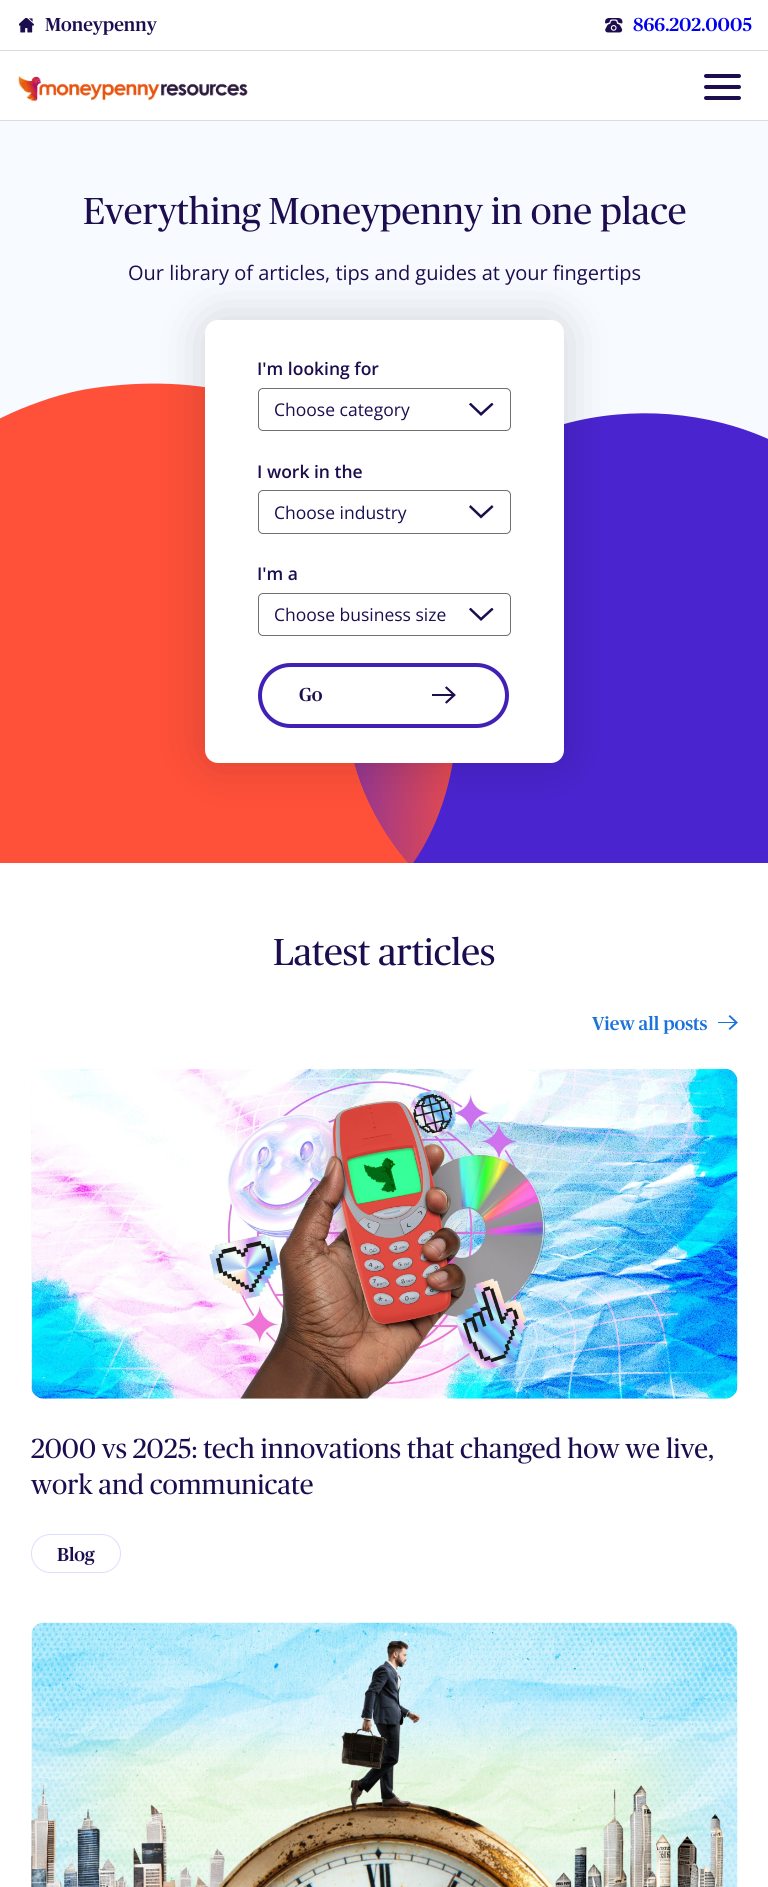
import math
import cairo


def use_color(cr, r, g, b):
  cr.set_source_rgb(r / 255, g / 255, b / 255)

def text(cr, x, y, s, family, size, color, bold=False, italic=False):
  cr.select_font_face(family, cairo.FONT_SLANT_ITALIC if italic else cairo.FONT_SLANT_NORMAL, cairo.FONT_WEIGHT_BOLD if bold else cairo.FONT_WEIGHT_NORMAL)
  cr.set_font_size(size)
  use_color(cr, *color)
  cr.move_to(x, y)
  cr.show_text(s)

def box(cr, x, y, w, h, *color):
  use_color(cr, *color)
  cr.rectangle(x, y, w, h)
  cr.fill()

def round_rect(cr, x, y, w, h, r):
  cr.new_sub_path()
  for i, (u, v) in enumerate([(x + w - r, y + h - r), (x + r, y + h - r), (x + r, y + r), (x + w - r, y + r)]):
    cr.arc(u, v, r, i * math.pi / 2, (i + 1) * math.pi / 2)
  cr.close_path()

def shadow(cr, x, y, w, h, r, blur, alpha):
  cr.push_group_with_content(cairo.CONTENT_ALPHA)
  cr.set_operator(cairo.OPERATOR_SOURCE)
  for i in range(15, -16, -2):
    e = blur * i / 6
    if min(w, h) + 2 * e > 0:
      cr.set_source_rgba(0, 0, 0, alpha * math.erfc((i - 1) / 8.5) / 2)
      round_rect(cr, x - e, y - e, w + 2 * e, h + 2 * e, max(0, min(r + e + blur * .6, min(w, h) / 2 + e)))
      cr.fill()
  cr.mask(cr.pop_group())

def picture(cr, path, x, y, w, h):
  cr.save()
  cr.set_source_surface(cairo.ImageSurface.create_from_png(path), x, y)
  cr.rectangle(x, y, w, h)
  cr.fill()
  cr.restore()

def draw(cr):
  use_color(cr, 255, 255, 255)
  cr.paint()
  box(cr, 0, 50, 768, 1, 219, 219, 219)
  picture(cr, "img_01.png", 19, 18, 15, 15)
  picture(cr, "img_02.png", 605, 18, 18, 15)
  box(cr, 0, 120, 768, 1, 219, 219, 219)
  picture(cr, "img_03.png", 18, 76, 230, 26)
  use_color(cr, 28, 13, 79)
  round_rect(cr, 704, 74, 37, 4, 2)
  cr.fill()
  round_rect(cr, 704, 85, 37, 4, 2)
  cr.fill()
  round_rect(cr, 704, 96, 37, 4, 2)
  cr.fill()
  box(cr, 0, 121, 768, 318, 247, 251, 255)
  picture(cr, "img_04.png", 0, 383, 768, 480)
  use_color(cr, 0, 0, 0)
  shadow(cr, 205, 320, 359, 443, 13, 24.5, 0.16)
  use_color(cr, 255, 255, 255)
  round_rect(cr, 205, 320, 359, 443, 13)
  cr.fill()
  cr.save()
  cr.rectangle(469, 403, 25, 13)
  cr.clip()
  use_color(cr, 28, 13, 79)
  cr.new_path()
  cr.move_to(469, 404.5)
  cr.line_to(470.5, 402.5)
  cr.line_to(481, 412.5)
  cr.line_to(492, 402.5)
  cr.line_to(493.5, 404.5)
  cr.line_to(481, 416)
  cr.close_path()
  cr.fill()
  cr.restore()
  round_rect(cr, 258.5, 388.5, 252, 42, 4.5)
  use_color(cr, 112, 112, 112)
  cr.set_line_width(1)
  cr.stroke()
  use_color(cr, 28, 13, 79)
  cr.new_path()
  cr.move_to(469, 507)
  cr.line_to(470.5, 505)
  cr.line_to(481, 515)
  cr.line_to(492, 505)
  cr.line_to(493.5, 507)
  cr.line_to(481, 518.5)
  cr.close_path()
  cr.fill()
  round_rect(cr, 258.5, 490.5, 252, 43, 4.5)
  use_color(cr, 112, 112, 112)
  cr.stroke()
  cr.save()
  cr.rectangle(469, 608, 25, 13)
  cr.clip()
  use_color(cr, 28, 13, 79)
  cr.new_path()
  cr.move_to(469, 609.5)
  cr.line_to(470.5, 607.5)
  cr.line_to(481, 617.5)
  cr.line_to(492, 607.5)
  cr.line_to(493.5, 609.5)
  cr.line_to(481, 621)
  cr.close_path()
  cr.fill()
  cr.restore()
  round_rect(cr, 258.5, 593.5, 252, 42, 4.5)
  cr.stroke()
  round_rect(cr, 260, 665, 247, 61, 30.5)
  use_color(cr, 65, 32, 182)
  cr.set_line_width(4)
  cr.stroke()
  picture(cr, "img_05.png", 432, 686, 24, 18)
  picture(cr, "img_06.png", 718, 1015, 20, 15)
  picture(cr, "img_07.png", 31, 1068, 707, 331)
  round_rect(cr, 31.5, 1534.5, 89, 38, 19)
  use_color(cr, 219, 223, 255)
  cr.set_line_width(1)
  cr.stroke()
  picture(cr, "img_08.png", 31, 1622, 707, 265)
  text(cr, 45, 31, "Moneypenny", "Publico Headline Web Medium", 18.75, (28, 13, 79))
  text(cr, 633, 31, "866.202.0005", "Publico Headline Web Medium", 18.75, (0, 0, 238))
  text(cr, 83, 224, "Everything Moneypenny in one place", "Publico Headline Web", 37.5, (28, 13, 79))
  text(cr, 128, 280, "Our library of articles, tips and guides at your fingertips", "Open Sans", 20, (28, 13, 79))
  text(cr, 257, 375, "I'm looking for", "Open Sans SemiBold", 17.5, (28, 13, 79))
  text(cr, 274, 416, "Choose category", "Open Sans", 17.5, (28, 13, 79))
  text(cr, 257, 478, "I work in the", "Open Sans SemiBold", 17.5, (28, 13, 79))
  text(cr, 274, 519, "Choose industry", "Open Sans", 17.5, (28, 13, 79))
  text(cr, 257, 580, "I'm a", "Open Sans SemiBold", 17.5, (28, 13, 79))
  text(cr, 274, 621, "Choose business size", "Open Sans", 17.5, (28, 13, 79))
  text(cr, 299, 701, "Go", "Publico Headline Web Medium", 18.75, (28, 13, 79))
  text(cr, 273, 965, "Latest articles", "Publico Headline Web", 37.5, (28, 13, 79))
  text(cr, 592, 1030, "View all posts", "Publico Headline Web Medium", 18.75, (27, 114, 218))
  text(cr, 31, 1458, "2000 vs 2025: tech innovations that changed how we live,", "Publico Headline Web", 27.5, (28, 13, 79))
  text(cr, 31, 1494, "work and communicate", "Publico Headline Web", 27.5, (28, 13, 79))
  text(cr, 57, 1561, "Blog", "Publico Headline Web Medium", 18.75, (28, 13, 79))


surface = cairo.ImageSurface(cairo.FORMAT_RGB24, 768, 1887)
cr = cairo.Context(surface)
options = cairo.FontOptions()
options.set_hint_metrics(cairo.HINT_METRICS_OFF)
options.set_hint_style(cairo.HINT_STYLE_NONE)
cr.set_font_options(options)
cr.set_miter_limit(4)
draw(cr)
surface.write_to_png("out.png")
